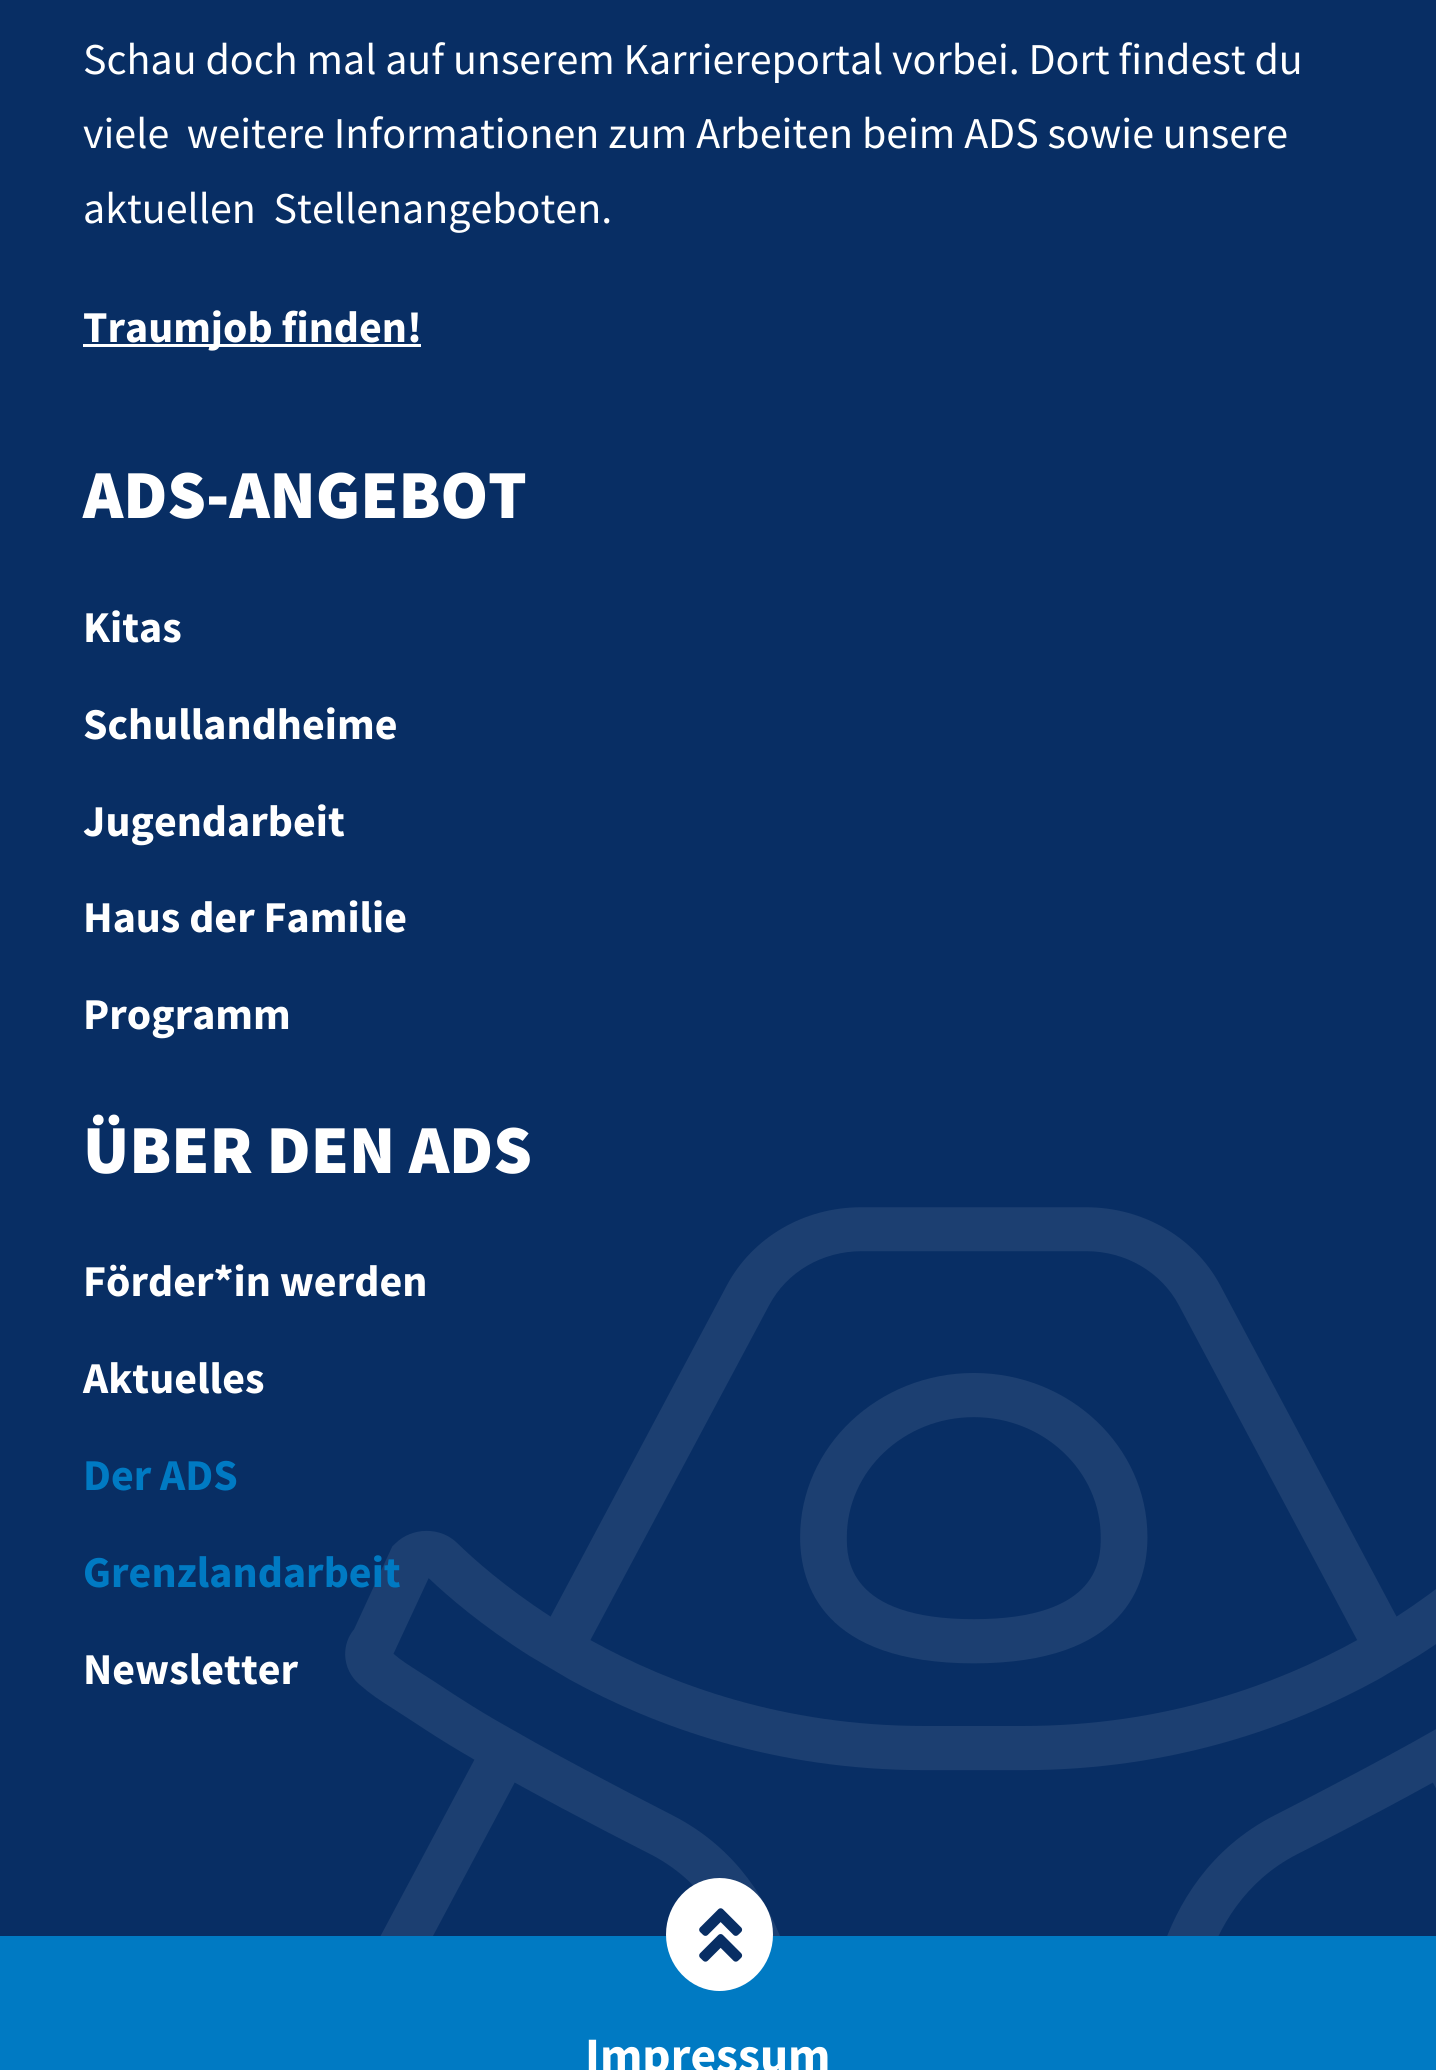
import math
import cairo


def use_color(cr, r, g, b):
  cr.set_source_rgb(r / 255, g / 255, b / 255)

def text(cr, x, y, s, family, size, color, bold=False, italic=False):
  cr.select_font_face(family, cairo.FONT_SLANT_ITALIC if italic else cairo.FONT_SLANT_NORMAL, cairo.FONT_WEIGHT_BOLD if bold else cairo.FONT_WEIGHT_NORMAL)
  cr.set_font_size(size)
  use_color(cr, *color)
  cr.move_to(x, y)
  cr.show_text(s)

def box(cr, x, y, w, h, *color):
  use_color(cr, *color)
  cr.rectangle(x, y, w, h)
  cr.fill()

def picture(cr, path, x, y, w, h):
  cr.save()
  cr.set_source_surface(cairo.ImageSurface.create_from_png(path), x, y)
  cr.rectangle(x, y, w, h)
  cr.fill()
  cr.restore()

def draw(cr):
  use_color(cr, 8, 46, 100)
  cr.paint()
  picture(cr, "img_01.png", 345, 1207, 1091, 729)
  box(cr, 83, 344, 338, 3, 255, 255, 255)
  box(cr, 0, 1936, 1436, 134, 0, 122, 195)
  use_color(cr, 255, 255, 255)
  cr.new_path()
  cr.move_to(719.5, 1878)
  cr.curve_to(749, 1878, 773, 1903.5, 773, 1934.5)
  cr.curve_to(773, 1965.5, 749, 1991, 719.5, 1991)
  cr.curve_to(690, 1991, 666, 1965.5, 666, 1934.5)
  cr.curve_to(666, 1903.5, 690, 1878, 719.5, 1878)
  cr.close_path()
  cr.fill()
  picture(cr, "img_02.png", 699, 1908, 44, 54)
  text(cr, 83, 74, "Schau doch mal auf unserem Karriereportal vorbei. Dort findest du", "Source Sans Pro", 44, (255, 255, 255))
  text(cr, 83, 148, "viele  weitere Informationen zum Arbeiten beim ADS sowie unsere", "Source Sans Pro", 44, (255, 255, 255))
  text(cr, 83, 223, "aktuellen  Stellenangeboten.", "Source Sans Pro", 44, (255, 255, 255))
  text(cr, 83, 342, "Traumjob finden!", "Source Sans Pro", 44, (255, 255, 255), bold=True)
  text(cr, 83, 518, "ADS-ANGEBOT", "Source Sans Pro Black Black", 68.75, (255, 255, 255))
  text(cr, 83, 642, "Kitas", "Source Sans Pro", 44, (255, 255, 255), bold=True)
  text(cr, 83, 739, "Schullandheime", "Source Sans Pro", 44, (255, 255, 255), bold=True)
  text(cr, 83, 836, "Jugendarbeit", "Source Sans Pro", 44, (255, 255, 255), bold=True)
  text(cr, 83, 932, "Haus der Familie", "Source Sans Pro", 44, (255, 255, 255), bold=True)
  text(cr, 83, 1029, "Programm", "Source Sans Pro", 44, (255, 255, 255), bold=True)
  text(cr, 83, 1173, "ÜBER DEN ADS", "Source Sans Pro Black Black", 68.75, (255, 255, 255))
  text(cr, 83, 1296, "Förder*in werden", "Source Sans Pro", 44, (255, 255, 255), bold=True)
  text(cr, 83, 1393, "Aktuelles", "Source Sans Pro", 44, (255, 255, 255), bold=True)
  text(cr, 83, 1490, "Der ADS", "Source Sans Pro", 44, (0, 122, 195), bold=True)
  text(cr, 83, 1587, "Grenzlandarbeit", "Source Sans Pro", 44, (0, 122, 195), bold=True)
  text(cr, 83, 1684, "Newsletter", "Source Sans Pro", 44, (255, 255, 255), bold=True)
  text(cr, 585, 2072, "Impressum", "Source Sans Pro", 49.5, (255, 255, 255), bold=True)


surface = cairo.ImageSurface(cairo.FORMAT_RGB24, 1436, 2070)
cr = cairo.Context(surface)
options = cairo.FontOptions()
options.set_hint_metrics(cairo.HINT_METRICS_OFF)
options.set_hint_style(cairo.HINT_STYLE_NONE)
cr.set_font_options(options)
cr.set_miter_limit(4)
draw(cr)
surface.write_to_png("out.png")
